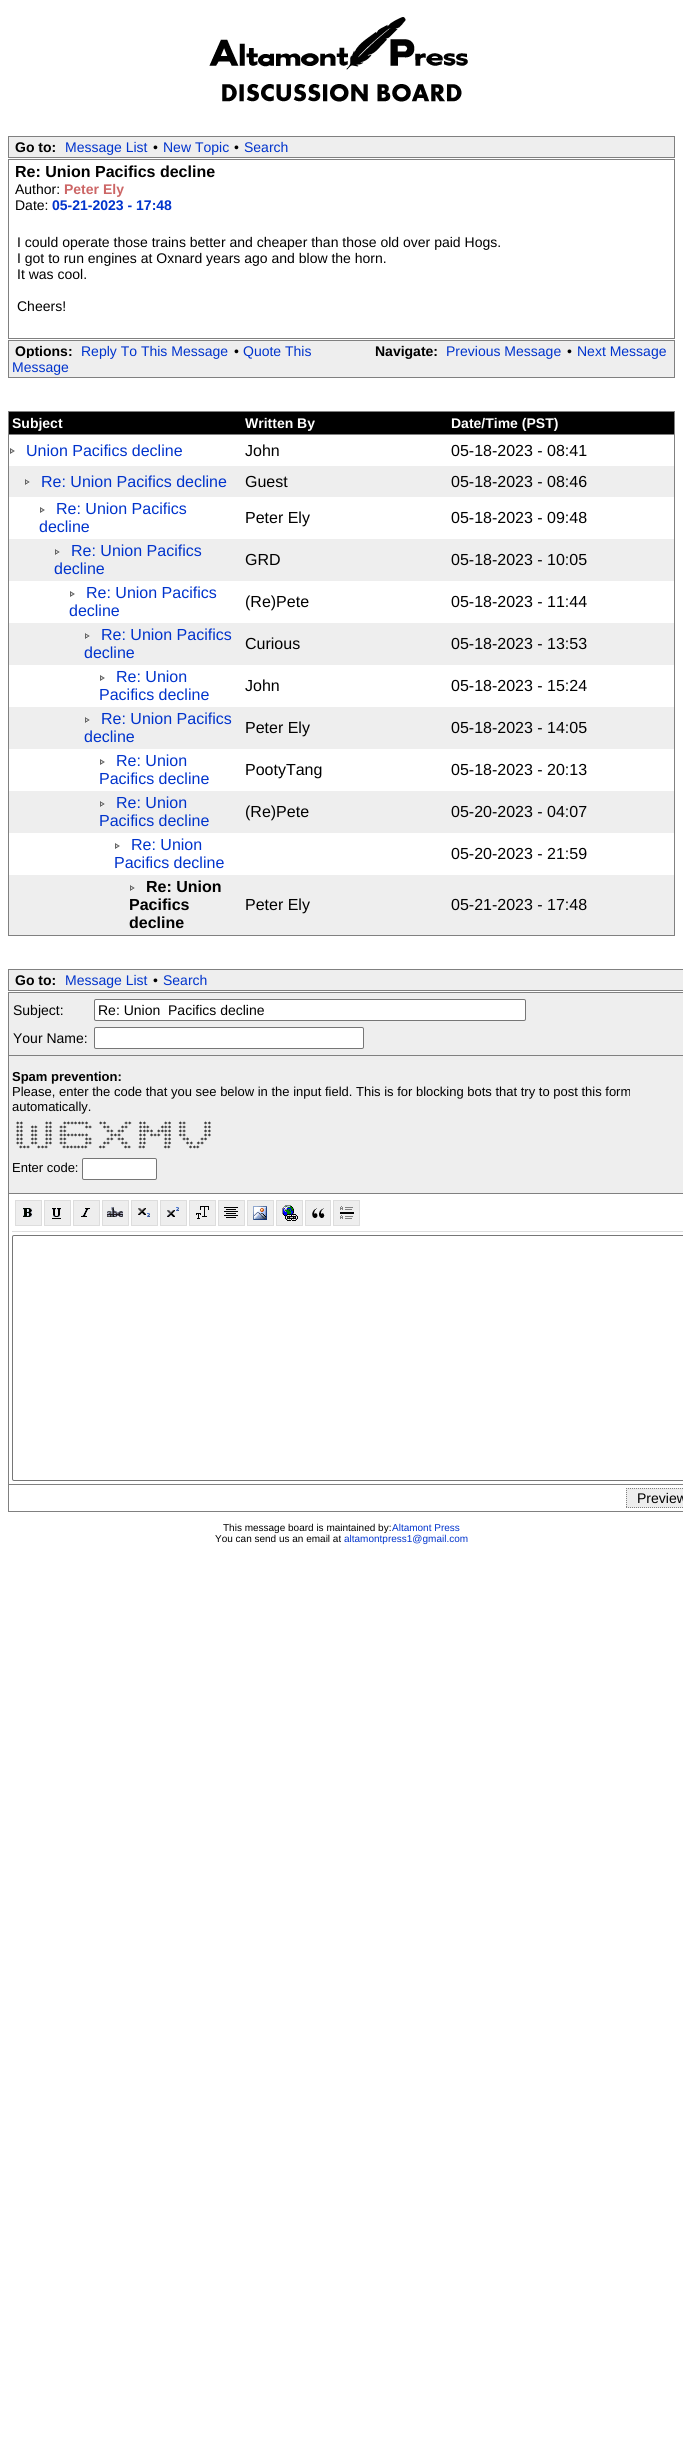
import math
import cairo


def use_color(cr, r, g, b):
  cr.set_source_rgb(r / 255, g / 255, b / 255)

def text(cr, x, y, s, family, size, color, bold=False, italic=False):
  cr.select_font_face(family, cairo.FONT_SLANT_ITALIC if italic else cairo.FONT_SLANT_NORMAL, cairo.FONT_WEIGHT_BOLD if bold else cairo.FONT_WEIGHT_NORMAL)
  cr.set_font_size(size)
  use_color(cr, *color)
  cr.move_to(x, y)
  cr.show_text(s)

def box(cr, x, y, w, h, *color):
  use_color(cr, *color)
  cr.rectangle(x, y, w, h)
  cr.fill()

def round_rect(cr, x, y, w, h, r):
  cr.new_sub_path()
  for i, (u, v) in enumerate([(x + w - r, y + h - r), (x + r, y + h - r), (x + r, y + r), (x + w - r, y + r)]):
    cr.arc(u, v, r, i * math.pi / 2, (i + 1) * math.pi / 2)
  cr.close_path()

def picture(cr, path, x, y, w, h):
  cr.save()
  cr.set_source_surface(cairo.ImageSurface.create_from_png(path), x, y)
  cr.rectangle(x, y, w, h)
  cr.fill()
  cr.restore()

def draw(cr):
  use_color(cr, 255, 255, 255)
  cr.paint()
  picture(cr, "img_01.png", 209, 17, 259, 85)
  use_color(cr, 238, 238, 238)
  cr.rectangle(8.5, 136.5, 666, 21)
  cr.fill_preserve()
  use_color(cr, 128, 128, 128)
  cr.set_line_width(1)
  cr.stroke()
  cr.rectangle(8.5, 159.5, 666, 179)
  cr.stroke()
  use_color(cr, 238, 238, 238)
  cr.rectangle(8.5, 340.5, 666, 37)
  cr.fill_preserve()
  use_color(cr, 128, 128, 128)
  cr.stroke()
  cr.rectangle(8.5, 411.5, 666, 524)
  cr.stroke()
  box(cr, 9, 412, 665, 22, 0, 0, 0)
  box(cr, 9, 434, 665, 1, 128, 128, 128)
  picture(cr, "img_02.png", 10, 448, 5, 6)
  box(cr, 9, 466, 665, 31, 238, 238, 238)
  picture(cr, "img_03.png", 25, 479, 5, 6)
  picture(cr, "img_02.png", 40, 507, 5, 6)
  box(cr, 9, 539, 665, 42, 238, 238, 238)
  picture(cr, "img_03.png", 55, 549, 5, 6)
  picture(cr, "img_02.png", 70, 591, 5, 6)
  box(cr, 9, 623, 665, 42, 238, 238, 238)
  picture(cr, "img_03.png", 85, 633, 5, 6)
  picture(cr, "img_02.png", 100, 675, 5, 6)
  box(cr, 9, 707, 665, 42, 238, 238, 238)
  picture(cr, "img_03.png", 85, 717, 5, 6)
  picture(cr, "img_02.png", 100, 759, 5, 6)
  box(cr, 9, 791, 665, 42, 238, 238, 238)
  picture(cr, "img_03.png", 100, 801, 5, 6)
  picture(cr, "img_02.png", 115, 843, 5, 6)
  box(cr, 9, 875, 665, 60, 238, 238, 238)
  picture(cr, "img_03.png", 130, 885, 5, 6)
  cr.rectangle(8.5, 969.5, 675, 21)
  cr.fill_preserve()
  use_color(cr, 128, 128, 128)
  cr.stroke()
  box(cr, 9, 993, 674, 62, 238, 238, 238)
  box(cr, 8, 992, 675, 1, 128, 128, 128)
  box(cr, 8, 992, 1, 63, 128, 128, 128)
  use_color(cr, 255, 255, 255)
  round_rect(cr, 94.5, 999.5, 431, 21, 1.5)
  cr.fill_preserve()
  use_color(cr, 118, 118, 118)
  cr.stroke()
  use_color(cr, 255, 255, 255)
  round_rect(cr, 94.5, 1027.5, 269, 21, 1.5)
  cr.fill_preserve()
  use_color(cr, 118, 118, 118)
  cr.stroke()
  box(cr, 9, 1056, 674, 137, 238, 238, 238)
  box(cr, 8, 1055, 675, 1, 128, 128, 128)
  box(cr, 8, 1055, 1, 138, 128, 128, 128)
  use_color(cr, 255, 255, 255)
  round_rect(cr, 82.5, 1158.5, 74, 21, 1.5)
  cr.fill_preserve()
  use_color(cr, 118, 118, 118)
  cr.stroke()
  cr.rectangle(8.5, 1193.5, 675, 291)
  use_color(cr, 128, 128, 128)
  cr.stroke()
  box(cr, 12, 1231, 671, 1, 221, 221, 221)
  use_color(cr, 238, 238, 238)
  cr.rectangle(15.5, 1200.5, 26, 25)
  cr.fill_preserve()
  use_color(cr, 221, 221, 221)
  cr.stroke()
  use_color(cr, 238, 238, 238)
  cr.rectangle(44.5, 1200.5, 26, 25)
  cr.fill_preserve()
  use_color(cr, 221, 221, 221)
  cr.stroke()
  use_color(cr, 238, 238, 238)
  cr.rectangle(73.5, 1200.5, 26, 25)
  cr.fill_preserve()
  use_color(cr, 221, 221, 221)
  cr.stroke()
  use_color(cr, 238, 238, 238)
  cr.rectangle(102.5, 1200.5, 26, 25)
  cr.fill_preserve()
  use_color(cr, 221, 221, 221)
  cr.stroke()
  use_color(cr, 238, 238, 238)
  cr.rectangle(131.5, 1200.5, 26, 25)
  cr.fill_preserve()
  use_color(cr, 221, 221, 221)
  cr.stroke()
  use_color(cr, 238, 238, 238)
  cr.rectangle(160.5, 1200.5, 26, 25)
  cr.fill_preserve()
  use_color(cr, 221, 221, 221)
  cr.stroke()
  use_color(cr, 238, 238, 238)
  cr.rectangle(189.5, 1200.5, 26, 25)
  cr.fill_preserve()
  use_color(cr, 221, 221, 221)
  cr.stroke()
  use_color(cr, 238, 238, 238)
  cr.rectangle(218.5, 1200.5, 26, 25)
  cr.fill_preserve()
  use_color(cr, 221, 221, 221)
  cr.stroke()
  use_color(cr, 238, 238, 238)
  cr.rectangle(247.5, 1200.5, 26, 25)
  cr.fill_preserve()
  use_color(cr, 221, 221, 221)
  cr.stroke()
  use_color(cr, 238, 238, 238)
  cr.rectangle(276.5, 1200.5, 26, 25)
  cr.fill_preserve()
  use_color(cr, 221, 221, 221)
  cr.stroke()
  use_color(cr, 238, 238, 238)
  cr.rectangle(305.5, 1200.5, 25, 25)
  cr.fill_preserve()
  use_color(cr, 221, 221, 221)
  cr.stroke()
  use_color(cr, 238, 238, 238)
  cr.rectangle(333.5, 1200.5, 26, 25)
  cr.fill_preserve()
  use_color(cr, 221, 221, 221)
  cr.stroke()
  picture(cr, "img_04.png", 23, 1208, 9, 9)
  picture(cr, "img_05.png", 52, 1208, 9, 11)
  picture(cr, "img_06.png", 81, 1208, 9, 9)
  picture(cr, "img_07.png", 107, 1207, 16, 10)
  picture(cr, "img_08.png", 138, 1208, 12, 9)
  picture(cr, "img_09.png", 167, 1207, 12, 10)
  picture(cr, "img_10.png", 196, 1206, 13, 13)
  picture(cr, "img_11.png", 224, 1207, 14, 11)
  picture(cr, "img_12.png", 253, 1206, 14, 14)
  picture(cr, "img_13.png", 282, 1205, 16, 16)
  picture(cr, "img_14.png", 312, 1208, 13, 10)
  picture(cr, "img_15.png", 340, 1206, 14, 13)
  round_rect(cr, 12.5, 1235.5, 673, 245, 1.5)
  use_color(cr, 118, 118, 118)
  cr.stroke()
  box(cr, 8, 1511, 675, 1, 128, 128, 128)
  box(cr, 8, 1485, 1, 27, 128, 128, 128)
  box(cr, 626, 1488, 57, 20, 238, 238, 238)
  cr.new_path()
  cr.move_to(626, 1488.5)
  cr.line_to(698, 1488.5)
  cr.move_to(626, 1507.5)
  cr.line_to(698, 1507.5)
  cr.move_to(626.5, 1488)
  cr.line_to(626.5, 1508)
  use_color(cr, 128, 128, 128)
  cr.set_dash([1, 1])
  cr.stroke()
  text(cr, 15, 152, "Go to:", "Liberation Sans", 14, (0, 0, 0), bold=True)
  text(cr, 65, 152, "Message List", "Liberation Sans", 14, (0, 51, 204))
  text(cr, 153, 152, "•", "Liberation Sans", 14, (0, 0, 0))
  text(cr, 163, 152, "New Topic", "Liberation Sans", 14, (0, 51, 204))
  text(cr, 234, 152, "•", "Liberation Sans", 14, (0, 0, 0))
  text(cr, 244, 152, "Search", "Liberation Sans", 14, (0, 51, 204))
  text(cr, 15, 177, "Re: Union Pacifics decline", "Liberation Sans", 16, (0, 0, 0), bold=True)
  text(cr, 15, 194, "Author:", "Liberation Sans", 14, (0, 0, 0))
  text(cr, 64, 194, "Peter Ely", "Liberation Sans", 14, (204, 102, 102), bold=True)
  text(cr, 15, 210, "Date:", "Liberation Sans", 14, (0, 0, 0))
  text(cr, 52, 210, "05-21-2023 - 17:48", "Liberation Sans", 14, (0, 51, 204), bold=True)
  text(cr, 17, 247, "I could operate those trains better and cheaper than those old over paid Hogs.", "Liberation Sans", 14, (0, 0, 0))
  text(cr, 17, 263, "I got to run engines at Oxnard years ago and blow the horn.", "Liberation Sans", 14, (0, 0, 0))
  text(cr, 17, 279, "It was cool.", "Liberation Sans", 14, (0, 0, 0))
  text(cr, 17, 311, "Cheers!", "Liberation Sans", 14, (0, 0, 0))
  text(cr, 15, 356, "Options:", "Liberation Sans", 14, (0, 0, 0), bold=True)
  text(cr, 81, 356, "Reply To This Message", "Liberation Sans", 14, (0, 51, 204))
  text(cr, 234, 356, "•", "Liberation Sans", 14, (0, 0, 0))
  text(cr, 243, 356, "Quote This", "Liberation Sans", 14, (0, 51, 204))
  text(cr, 375, 356, "Navigate:", "Liberation Sans", 14, (0, 0, 0), bold=True)
  text(cr, 446, 356, "Previous Message", "Liberation Sans", 14, (0, 51, 204))
  text(cr, 567, 356, "•", "Liberation Sans", 14, (0, 0, 0))
  text(cr, 577, 356, "Next Message", "Liberation Sans", 14, (0, 51, 204))
  text(cr, 12, 372, "Message", "Liberation Sans", 14, (0, 51, 204))
  box(cr, 26, 358, 3, 1, 238, 238, 238)
  text(cr, 12, 428, "Subject", "Liberation Sans", 14, (255, 255, 255), bold=True)
  text(cr, 245, 428, "Written By", "Liberation Sans", 14, (255, 255, 255), bold=True)
  text(cr, 451, 428, "Date/Time (PST)", "Liberation Sans", 14, (255, 255, 255), bold=True)
  text(cr, 26, 456, "Union Pacifics decline", "Liberation Sans", 16, (0, 51, 204))
  text(cr, 245, 456, "John", "Liberation Sans", 16, (0, 0, 0))
  text(cr, 451, 456, "05-18-2023 - 08:41", "Liberation Sans", 16, (0, 0, 0))
  text(cr, 41, 487, "Re: Union Pacifics decline", "Liberation Sans", 16, (0, 51, 204))
  text(cr, 245, 487, "Guest", "Liberation Sans", 16, (0, 0, 0))
  text(cr, 451, 487, "05-18-2023 - 08:46", "Liberation Sans", 16, (0, 0, 0))
  text(cr, 56, 514, "Re: Union Pacifics", "Liberation Sans", 16, (0, 51, 204))
  text(cr, 39, 532, "decline", "Liberation Sans", 16, (0, 51, 204))
  text(cr, 245, 523, "Peter Ely", "Liberation Sans", 16, (0, 0, 0))
  text(cr, 451, 523, "05-18-2023 - 09:48", "Liberation Sans", 16, (0, 0, 0))
  text(cr, 71, 556, "Re: Union Pacifics", "Liberation Sans", 16, (0, 51, 204))
  text(cr, 54, 574, "decline", "Liberation Sans", 16, (0, 51, 204))
  text(cr, 245, 565, "GRD", "Liberation Sans", 16, (0, 0, 0))
  text(cr, 451, 565, "05-18-2023 - 10:05", "Liberation Sans", 16, (0, 0, 0))
  text(cr, 86, 598, "Re: Union Pacifics", "Liberation Sans", 16, (0, 51, 204))
  text(cr, 69, 616, "decline", "Liberation Sans", 16, (0, 51, 204))
  text(cr, 245, 607, "(Re)Pete", "Liberation Sans", 16, (0, 0, 0))
  text(cr, 451, 607, "05-18-2023 - 11:44", "Liberation Sans", 16, (0, 0, 0))
  text(cr, 101, 640, "Re: Union Pacifics", "Liberation Sans", 16, (0, 51, 204))
  text(cr, 84, 658, "decline", "Liberation Sans", 16, (0, 51, 204))
  text(cr, 245, 649, "Curious", "Liberation Sans", 16, (0, 0, 0))
  text(cr, 451, 649, "05-18-2023 - 13:53", "Liberation Sans", 16, (0, 0, 0))
  text(cr, 116, 682, "Re: Union", "Liberation Sans", 16, (0, 51, 204))
  text(cr, 99, 700, "Pacifics decline", "Liberation Sans", 16, (0, 51, 204))
  text(cr, 245, 691, "John", "Liberation Sans", 16, (0, 0, 0))
  text(cr, 451, 691, "05-18-2023 - 15:24", "Liberation Sans", 16, (0, 0, 0))
  text(cr, 101, 724, "Re: Union Pacifics", "Liberation Sans", 16, (0, 51, 204))
  text(cr, 84, 742, "decline", "Liberation Sans", 16, (0, 51, 204))
  text(cr, 245, 733, "Peter Ely", "Liberation Sans", 16, (0, 0, 0))
  text(cr, 451, 733, "05-18-2023 - 14:05", "Liberation Sans", 16, (0, 0, 0))
  text(cr, 116, 766, "Re: Union", "Liberation Sans", 16, (0, 51, 204))
  text(cr, 99, 784, "Pacifics decline", "Liberation Sans", 16, (0, 51, 204))
  text(cr, 245, 775, "PootyTang", "Liberation Sans", 16, (0, 0, 0))
  text(cr, 451, 775, "05-18-2023 - 20:13", "Liberation Sans", 16, (0, 0, 0))
  text(cr, 116, 808, "Re: Union", "Liberation Sans", 16, (0, 51, 204))
  text(cr, 99, 826, "Pacifics decline", "Liberation Sans", 16, (0, 51, 204))
  text(cr, 245, 817, "(Re)Pete", "Liberation Sans", 16, (0, 0, 0))
  text(cr, 451, 817, "05-20-2023 - 04:07", "Liberation Sans", 16, (0, 0, 0))
  text(cr, 131, 850, "Re: Union", "Liberation Sans", 16, (0, 51, 204))
  text(cr, 114, 868, "Pacifics decline", "Liberation Sans", 16, (0, 51, 204))
  text(cr, 451, 859, "05-20-2023 - 21:59", "Liberation Sans", 16, (0, 0, 0))
  text(cr, 146, 892, "Re: Union", "Liberation Sans", 16, (0, 0, 0), bold=True)
  text(cr, 129, 910, "Pacifics", "Liberation Sans", 16, (0, 0, 0), bold=True)
  text(cr, 129, 928, "decline", "Liberation Sans", 16, (0, 0, 0), bold=True)
  text(cr, 245, 910, "Peter Ely", "Liberation Sans", 16, (0, 0, 0))
  text(cr, 451, 910, "05-21-2023 - 17:48", "Liberation Sans", 16, (0, 0, 0))
  text(cr, 15, 985, "Go to:", "Liberation Sans", 14, (0, 0, 0), bold=True)
  text(cr, 65, 985, "Message List", "Liberation Sans", 14, (0, 51, 204))
  text(cr, 153, 985, "•", "Liberation Sans", 14, (0, 0, 0))
  text(cr, 163, 985, "Search", "Liberation Sans", 14, (0, 51, 204))
  text(cr, 13, 1015, "Subject:", "Liberation Sans", 14, (0, 0, 0))
  text(cr, 98, 1015, "Re: Union  Pacifics decline", "Liberation Sans", 14, (0, 0, 0))
  text(cr, 13, 1043, "Your Name:", "Liberation Sans", 14, (0, 0, 0))
  text(cr, 12, 1081, "Spam prevention:", "Liberation Sans", 13, (0, 0, 0), bold=True)
  text(cr, 12, 1096, "Please, enter the code that you see below in the input field. This is for blocking bots that try to post this form", "Liberation Sans", 13, (0, 0, 0))
  text(cr, 12, 1111, "automatically.", "Liberation Sans", 13, (0, 0, 0))
  text(cr, 16, 1126, "**      **   *******   **     **  **     **  **     **", "DejaVu Sans Mono", 6, (0, 0, 0), bold=True)
  text(cr, 16, 1130, "**  **  **  **     **   **   **   ***   ***  **     **", "DejaVu Sans Mono", 6, (0, 0, 0), bold=True)
  text(cr, 16, 1134, "**  **  **  **           ** **    **** ****  **     **", "DejaVu Sans Mono", 6, (0, 0, 0), bold=True)
  text(cr, 16, 1138, "**  **  **  ********      ***     ** *** **  **     **", "DejaVu Sans Mono", 6, (0, 0, 0), bold=True)
  text(cr, 16, 1142, "**  **  **  **     **    ** **    **     **   **   **", "DejaVu Sans Mono", 6, (0, 0, 0), bold=True)
  text(cr, 16, 1146, "**  **  **  **     **   **   **   **     **    ** **", "DejaVu Sans Mono", 6, (0, 0, 0), bold=True)
  text(cr, 19, 1150, "***  ***    *******   **     **  **     **     ***", "DejaVu Sans Mono", 6, (0, 0, 0), bold=True)
  text(cr, 12, 1172, "Enter code:", "Liberation Sans", 13, (0, 0, 0))
  text(cr, 637, 1503, "Preview", "Liberation Sans", 14, (0, 0, 0))
  text(cr, 223, 1531, "This message board is maintained by:", "Liberation Sans", 10, (0, 0, 0))
  text(cr, 392, 1531, "Altamont Press", "Liberation Sans", 10, (0, 51, 204))
  text(cr, 215, 1542, "You can send us an email at", "Liberation Sans", 10, (0, 0, 0))
  text(cr, 344, 1542, "altamontpress1@gmail.com", "Liberation Sans", 10, (0, 51, 204))


surface = cairo.ImageSurface(cairo.FORMAT_RGB24, 683, 2441)
cr = cairo.Context(surface)
options = cairo.FontOptions()
options.set_hint_metrics(cairo.HINT_METRICS_OFF)
options.set_hint_style(cairo.HINT_STYLE_NONE)
cr.set_font_options(options)
cr.set_miter_limit(4)
draw(cr)
surface.write_to_png("out.png")
